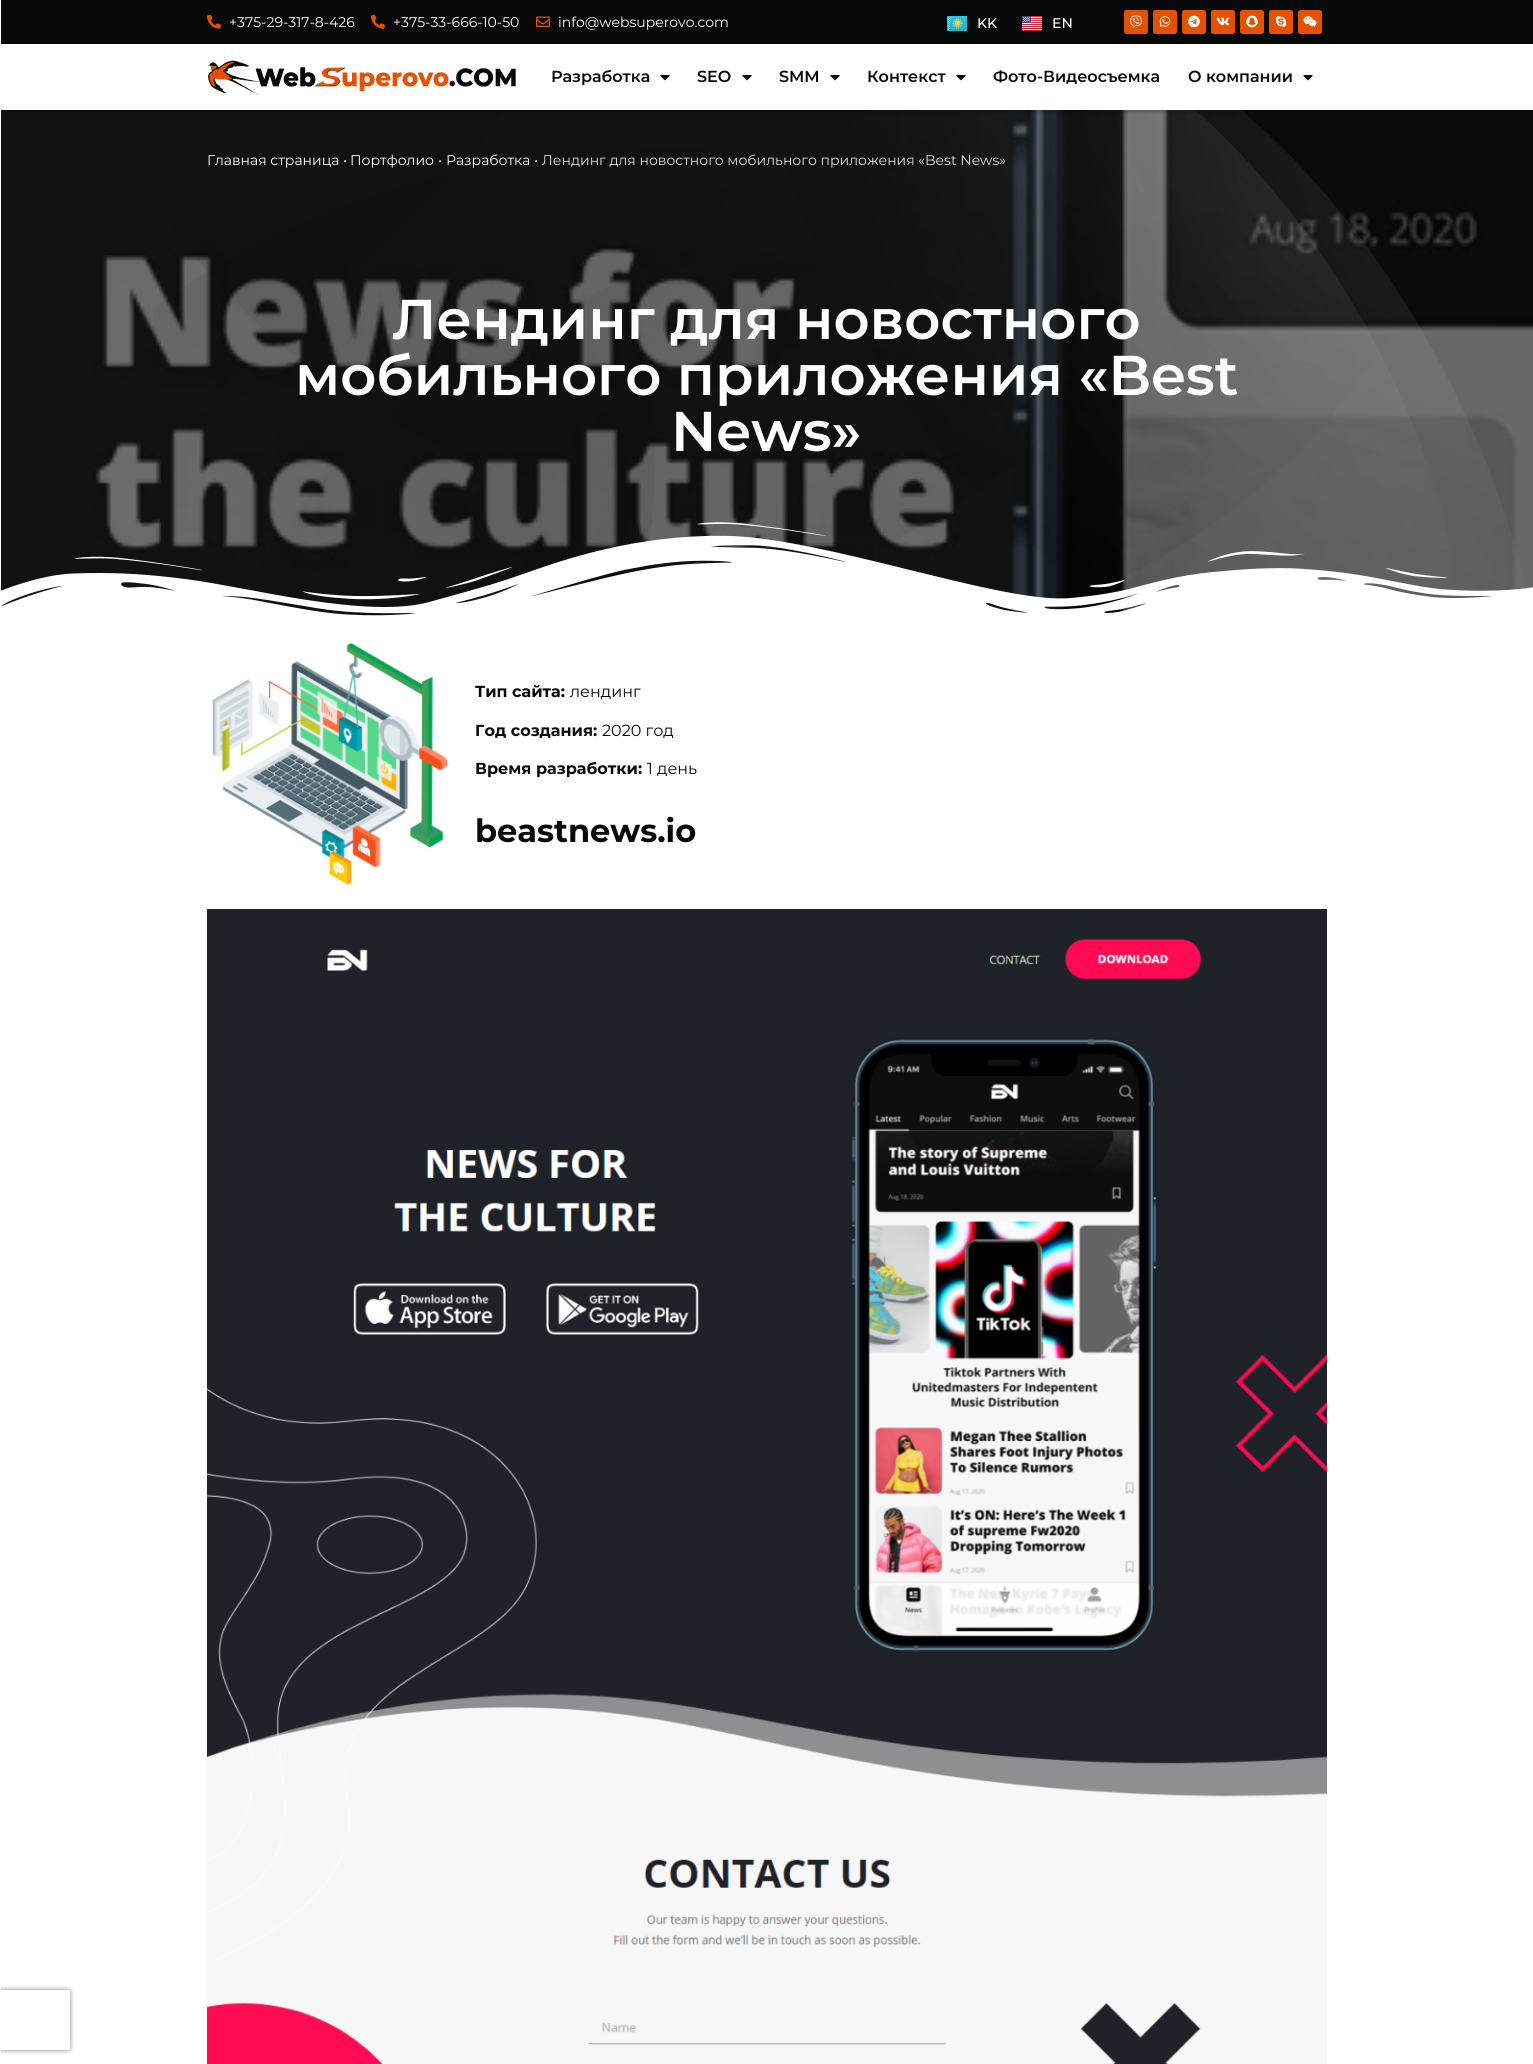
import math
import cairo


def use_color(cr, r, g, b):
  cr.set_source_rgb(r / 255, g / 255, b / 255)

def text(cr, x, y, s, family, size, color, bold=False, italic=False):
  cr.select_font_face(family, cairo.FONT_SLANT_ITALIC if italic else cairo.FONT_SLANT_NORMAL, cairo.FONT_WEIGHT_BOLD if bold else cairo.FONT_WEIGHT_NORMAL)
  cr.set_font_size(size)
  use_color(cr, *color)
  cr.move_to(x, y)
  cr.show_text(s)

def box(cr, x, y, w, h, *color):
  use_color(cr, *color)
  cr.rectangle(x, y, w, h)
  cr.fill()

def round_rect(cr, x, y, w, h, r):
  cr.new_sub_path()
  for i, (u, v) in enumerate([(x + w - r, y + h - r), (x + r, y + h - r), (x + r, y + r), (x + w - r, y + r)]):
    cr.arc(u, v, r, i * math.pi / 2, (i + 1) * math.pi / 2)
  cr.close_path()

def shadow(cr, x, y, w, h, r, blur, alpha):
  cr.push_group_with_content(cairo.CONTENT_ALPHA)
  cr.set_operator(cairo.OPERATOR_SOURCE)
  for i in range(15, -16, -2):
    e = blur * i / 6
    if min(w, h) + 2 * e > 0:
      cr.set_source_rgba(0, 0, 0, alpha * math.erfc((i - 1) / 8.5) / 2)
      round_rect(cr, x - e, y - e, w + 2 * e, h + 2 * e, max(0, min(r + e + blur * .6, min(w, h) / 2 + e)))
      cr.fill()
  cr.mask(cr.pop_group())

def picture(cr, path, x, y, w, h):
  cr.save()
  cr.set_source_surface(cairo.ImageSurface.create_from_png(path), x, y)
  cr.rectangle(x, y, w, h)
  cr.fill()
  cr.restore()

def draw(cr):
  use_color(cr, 255, 255, 255)
  cr.paint()
  box(cr, 1, 0, 1532, 44, 9, 9, 9)
  picture(cr, "img_14.png", 1, 110, 1532, 506)
  picture(cr, "img_15.png", 153, 110, 1372, 506)
  cr.save()
  cr.set_fill_rule(cairo.FILL_RULE_EVEN_ODD)
  cr.new_path()
  cr.move_to(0, 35)
  cr.line_to(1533, 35)
  cr.line_to(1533, 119)
  cr.line_to(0, 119)
  cr.close_path()
  cr.move_to(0, 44)
  cr.line_to(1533, 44)
  cr.line_to(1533, 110)
  cr.line_to(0, 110)
  cr.close_path()
  cr.clip()
  use_color(cr, 0, 0, 0)
  shadow(cr, 0, 44, 1533, 66, 0, 2.5, 0.5)
  cr.restore()
  cr.save()
  cr.set_fill_rule(cairo.FILL_RULE_EVEN_ODD)
  cr.new_path()
  cr.move_to(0, 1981)
  cr.line_to(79, 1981)
  cr.line_to(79, 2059)
  cr.line_to(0, 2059)
  cr.close_path()
  cr.move_to(-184, 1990)
  cr.line_to(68, 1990)
  cr.curve_to(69, 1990, 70, 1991, 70, 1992)
  cr.line_to(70, 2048)
  cr.curve_to(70, 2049, 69, 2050, 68, 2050)
  cr.line_to(-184, 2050)
  cr.curve_to(-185, 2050, -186, 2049, -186, 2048)
  cr.line_to(-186, 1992)
  cr.curve_to(-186, 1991, -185, 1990, -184, 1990)
  cr.close_path()
  cr.clip()
  use_color(cr, 128, 128, 128)
  shadow(cr, -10, 1990, 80, 60, 2, 2.5, 1)
  cr.restore()
  box(cr, 0, 39, 1, 2016, 255, 255, 255)
  picture(cr, "img_01.png", 207, 14, 14, 15)
  picture(cr, "img_01.png", 371, 14, 14, 15)
  picture(cr, "img_02.png", 536, 16, 14, 11)
  picture(cr, "img_03.png", 947, 16, 20, 15)
  picture(cr, "img_04.png", 1022, 16, 20, 15)
  use_color(cr, 230, 81, 0)
  round_rect(cr, 1124, 10, 24, 24, 2.5)
  cr.fill()
  picture(cr, "img_05.png", 1130, 15, 12, 13)
  round_rect(cr, 1153, 10, 24, 24, 2.5)
  cr.fill()
  picture(cr, "img_06.png", 1159, 16, 12, 11)
  round_rect(cr, 1182, 10, 24, 24, 2.5)
  cr.fill()
  picture(cr, "img_07.png", 1188, 15, 12, 13)
  round_rect(cr, 1211, 10, 24, 24, 2.5)
  cr.fill()
  picture(cr, "img_08.png", 1216, 17, 14, 9)
  round_rect(cr, 1240, 10, 24, 24, 2.5)
  cr.fill()
  picture(cr, "img_09.png", 1246, 15, 12, 13)
  round_rect(cr, 1269, 10, 24, 24, 2.5)
  cr.fill()
  picture(cr, "img_10.png", 1275, 16, 12, 11)
  round_rect(cr, 1298, 10, 24, 24, 2.5)
  cr.fill()
  picture(cr, "img_11.png", 1303, 16, 14, 11)
  picture(cr, "img_12.png", 208, 60, 308, 35)
  picture(cr, "img_13.png", 660, 75, 10, 6)
  picture(cr, "img_13.png", 742, 75, 10, 6)
  picture(cr, "img_13.png", 830, 75, 10, 6)
  picture(cr, "img_13.png", 956, 75, 10, 6)
  picture(cr, "img_13.png", 1303, 75, 10, 6)
  picture(cr, "img_16.png", 1, 522, 1532, 107)
  picture(cr, "img_17.png", 212, 642, 237, 244)
  picture(cr, "img_18.png", 207, 909, 1120, 1155)
  text(cr, 229, 27, "+375-29-317-8-426", "Montserrat", 14, (255, 255, 255))
  text(cr, 393, 27, "+375-33-666-10-50", "Montserrat", 14, (255, 255, 255))
  text(cr, 558, 27, "info@websuperovo.com", "Montserrat", 14, (255, 255, 255))
  text(cr, 977, 28, "KK", "Montserrat Medium", 14, (255, 255, 255))
  text(cr, 1052, 28, "EN", "Montserrat Medium", 14, (255, 255, 255))
  text(cr, 551, 82, "Разработка", "Montserrat SemiBold", 16, (9, 9, 9))
  text(cr, 697, 82, "SEO", "Montserrat SemiBold", 16, (9, 9, 9))
  text(cr, 779, 82, "SMM", "Montserrat SemiBold", 16, (9, 9, 9))
  text(cr, 867, 82, "Контекст", "Montserrat SemiBold", 16, (9, 9, 9))
  text(cr, 993, 82, "Фото-Видеосъемка", "Montserrat SemiBold", 16, (9, 9, 9))
  text(cr, 1188, 82, "О компании", "Montserrat SemiBold", 16, (9, 9, 9))
  text(cr, 207, 165, "Главная страница", "Montserrat", 14, (255, 255, 255))
  text(cr, 343, 165, "•", "Montserrat", 14, (221, 221, 221))
  text(cr, 350, 165, "Портфолио", "Montserrat", 14, (255, 255, 255))
  text(cr, 438, 165, "•", "Montserrat", 14, (221, 221, 221))
  text(cr, 446, 165, "Разработка", "Montserrat", 14, (255, 255, 255))
  text(cr, 534, 165, "• Лендинг для новостного мобильного приложения «Best News»", "Montserrat", 14, (221, 221, 221))
  text(cr, 392, 339, "Лендинг для новостного", "Montserrat SemiBold", 56, (255, 255, 255))
  text(cr, 295, 395, "мобильного приложения «Best", "Montserrat SemiBold", 56, (255, 255, 255))
  text(cr, 671, 451, "News»", "Montserrat SemiBold", 56, (255, 255, 255))
  text(cr, 475, 697, "Тип сайта:", "Montserrat", 16, (9, 9, 9), bold=True)
  text(cr, 570, 697, "лендинг", "Montserrat", 16, (9, 9, 9))
  text(cr, 475, 736, "Год создания:", "Montserrat", 16, (9, 9, 9), bold=True)
  text(cr, 602, 736, "2020 год", "Montserrat", 16, (9, 9, 9))
  text(cr, 475, 774, "Время разработки:", "Montserrat", 16, (9, 9, 9), bold=True)
  text(cr, 647, 774, "1 день", "Montserrat", 16, (9, 9, 9))
  text(cr, 475, 842, "beastnews.io", "Montserrat", 32, (9, 9, 9), bold=True)


surface = cairo.ImageSurface(cairo.FORMAT_RGB24, 1533, 2064)
cr = cairo.Context(surface)
options = cairo.FontOptions()
options.set_hint_metrics(cairo.HINT_METRICS_OFF)
options.set_hint_style(cairo.HINT_STYLE_NONE)
cr.set_font_options(options)
cr.set_miter_limit(4)
draw(cr)
surface.write_to_png("out.png")
